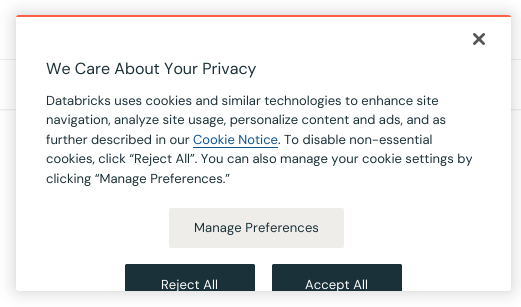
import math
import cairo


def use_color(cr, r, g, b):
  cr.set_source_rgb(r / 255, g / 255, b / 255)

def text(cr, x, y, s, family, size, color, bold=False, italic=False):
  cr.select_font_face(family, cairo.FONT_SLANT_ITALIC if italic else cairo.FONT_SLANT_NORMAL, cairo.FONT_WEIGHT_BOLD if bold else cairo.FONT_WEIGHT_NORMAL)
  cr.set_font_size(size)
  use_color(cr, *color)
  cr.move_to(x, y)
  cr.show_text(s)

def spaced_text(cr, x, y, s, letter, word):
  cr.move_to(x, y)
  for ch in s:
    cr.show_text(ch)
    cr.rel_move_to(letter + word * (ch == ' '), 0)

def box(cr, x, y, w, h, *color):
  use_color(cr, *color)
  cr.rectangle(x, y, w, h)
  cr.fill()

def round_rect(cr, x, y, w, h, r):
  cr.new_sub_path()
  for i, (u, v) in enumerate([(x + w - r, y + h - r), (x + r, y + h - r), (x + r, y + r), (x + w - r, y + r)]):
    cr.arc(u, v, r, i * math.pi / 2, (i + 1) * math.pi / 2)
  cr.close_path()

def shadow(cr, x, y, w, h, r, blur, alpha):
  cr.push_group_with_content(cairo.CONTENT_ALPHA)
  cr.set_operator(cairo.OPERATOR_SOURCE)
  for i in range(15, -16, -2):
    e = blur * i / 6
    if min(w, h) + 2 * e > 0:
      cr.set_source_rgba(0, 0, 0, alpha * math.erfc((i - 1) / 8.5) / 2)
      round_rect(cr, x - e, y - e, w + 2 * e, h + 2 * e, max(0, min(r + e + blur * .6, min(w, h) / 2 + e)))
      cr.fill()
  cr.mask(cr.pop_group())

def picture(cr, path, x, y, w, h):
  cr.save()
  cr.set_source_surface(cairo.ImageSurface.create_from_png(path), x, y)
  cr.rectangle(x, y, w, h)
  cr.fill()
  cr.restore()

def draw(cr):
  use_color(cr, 255, 255, 255)
  cr.paint()
  cr.save()
  cr.rectangle(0, 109, 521, 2)
  cr.clip()
  use_color(cr, 0, 0, 0)
  shadow(cr, 0, 1, 521, 109, 0, 1, 0.1)
  cr.restore()
  box(cr, 0, 59, 521, 1, 235, 237, 240)
  use_color(cr, 0, 0, 0)
  shadow(cr, 16, 15, 495, 276, 2.5, 9, 0.2)
  use_color(cr, 255, 255, 255)
  round_rect(cr, 16, 15, 495, 276, 2.5)
  cr.fill()
  cr.save()
  round_rect(cr, 16, 15, 495, 276, 2.5)
  cr.clip()
  box(cr, 16, 15, 495, 2, 255, 95, 70)
  cr.restore()
  picture(cr, "img_01.png", 473, 33, 12, 12)
  box(cr, 193, 147, 85, 1, 14, 83, 139)
  use_color(cr, 238, 237, 233)
  round_rect(cr, 169, 208, 175, 40, 2)
  cr.fill()
  use_color(cr, 27, 49, 57)
  cr.new_path()
  cr.move_to(127, 264)
  cr.line_to(253, 264)
  cr.curve_to(254, 264, 255, 265, 255, 266)
  cr.line_to(255, 291)
  cr.line_to(125, 291)
  cr.line_to(125, 266)
  cr.curve_to(125, 265, 126, 264, 127, 264)
  cr.close_path()
  cr.fill()
  cr.new_path()
  cr.move_to(127, 264)
  cr.curve_to(126, 264, 125, 265, 125, 266)
  cr.line_to(125, 291)
  cr.line_to(126, 291)
  cr.line_to(126, 266)
  cr.curve_to(126, 265, 126, 265, 127, 265)
  cr.line_to(253, 265)
  cr.curve_to(254, 265, 254, 265, 254, 266)
  cr.line_to(254, 291)
  cr.line_to(255, 291)
  cr.line_to(255, 266)
  cr.curve_to(255, 265, 254, 264, 253, 264)
  cr.close_path()
  cr.fill()
  cr.new_path()
  cr.move_to(274, 264)
  cr.line_to(400, 264)
  cr.curve_to(401, 264, 402, 265, 402, 266)
  cr.line_to(402, 291)
  cr.line_to(272, 291)
  cr.line_to(272, 266)
  cr.curve_to(272, 265, 273, 264, 274, 264)
  cr.close_path()
  cr.fill()
  cr.new_path()
  cr.move_to(274, 264)
  cr.curve_to(273, 264, 272, 265, 272, 266)
  cr.line_to(272, 291)
  cr.line_to(273, 291)
  cr.line_to(273, 266)
  cr.curve_to(273, 265, 273, 265, 274, 265)
  cr.line_to(400, 265)
  cr.curve_to(401, 265, 401, 265, 401, 266)
  cr.line_to(401, 291)
  cr.line_to(402, 291)
  cr.line_to(402, 266)
  cr.curve_to(402, 265, 401, 264, 400, 264)
  cr.close_path()
  cr.fill()
  text(cr, 46, 74, "We Care About Your Privacy", "DM Sans", 16, (27, 49, 57))
  text(cr, 46, 105, "Databricks uses cookies and similar technologies to enhance site", "DM Sans", 13, (27, 49, 57))
  text(cr, 46, 124, "navigation, analyze site usage, personalize content and ads, and as", "DM Sans", 13, (27, 49, 57))
  text(cr, 46, 144, "further described in our", "DM Sans", 13, (27, 49, 57))
  text(cr, 193, 144, "Cookie Notice", "DM Sans", 13, (14, 83, 139))
  text(cr, 278, 144, ". To disable non-essential", "DM Sans", 13, (27, 49, 57))
  text(cr, 46, 163, "cookies, click “Reject All”. You can also manage your cookie settings by", "DM Sans", 13, (27, 49, 57))
  text(cr, 46, 183, "clicking “Manage Preferences.”", "DM Sans", 13, (27, 49, 57))
  spaced_text(cr, 194, 232, "Manage Preferences", 0.1, 0)
  cr.save()
  round_rect(cr, 16, 15, 495, 276, 2.5)
  cr.clip()
  use_color(cr, 255, 255, 255)
  spaced_text(cr, 161, 289, "Reject All", 0.1, 0)
  cr.restore()
  use_color(cr, 255, 255, 255)
  spaced_text(cr, 305, 289, "Accept All", 0.1, 0)


surface = cairo.ImageSurface(cairo.FORMAT_RGB24, 521, 307)
cr = cairo.Context(surface)
options = cairo.FontOptions()
options.set_hint_metrics(cairo.HINT_METRICS_OFF)
options.set_hint_style(cairo.HINT_STYLE_NONE)
cr.set_font_options(options)
cr.set_miter_limit(4)
draw(cr)
surface.write_to_png("out.png")
